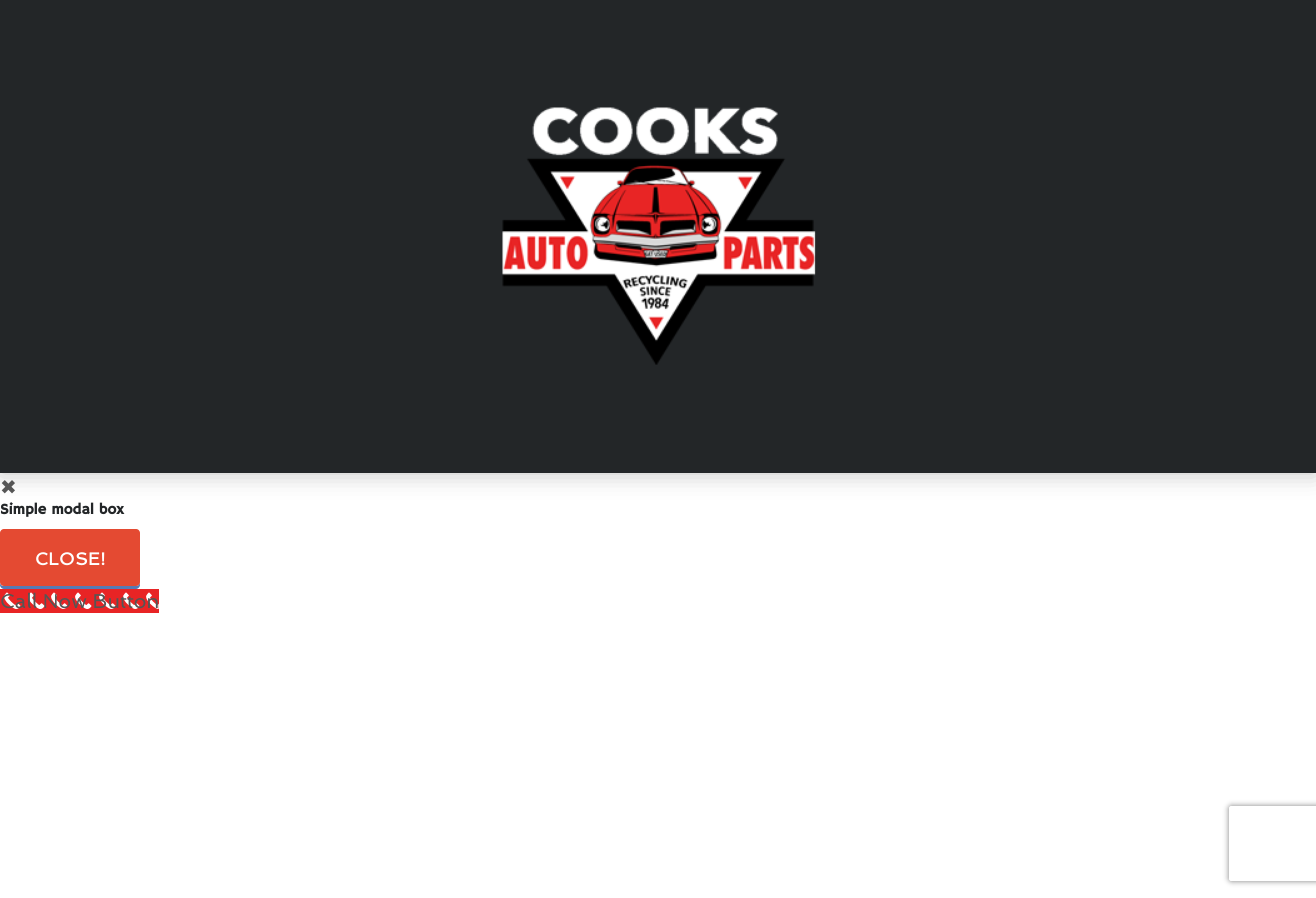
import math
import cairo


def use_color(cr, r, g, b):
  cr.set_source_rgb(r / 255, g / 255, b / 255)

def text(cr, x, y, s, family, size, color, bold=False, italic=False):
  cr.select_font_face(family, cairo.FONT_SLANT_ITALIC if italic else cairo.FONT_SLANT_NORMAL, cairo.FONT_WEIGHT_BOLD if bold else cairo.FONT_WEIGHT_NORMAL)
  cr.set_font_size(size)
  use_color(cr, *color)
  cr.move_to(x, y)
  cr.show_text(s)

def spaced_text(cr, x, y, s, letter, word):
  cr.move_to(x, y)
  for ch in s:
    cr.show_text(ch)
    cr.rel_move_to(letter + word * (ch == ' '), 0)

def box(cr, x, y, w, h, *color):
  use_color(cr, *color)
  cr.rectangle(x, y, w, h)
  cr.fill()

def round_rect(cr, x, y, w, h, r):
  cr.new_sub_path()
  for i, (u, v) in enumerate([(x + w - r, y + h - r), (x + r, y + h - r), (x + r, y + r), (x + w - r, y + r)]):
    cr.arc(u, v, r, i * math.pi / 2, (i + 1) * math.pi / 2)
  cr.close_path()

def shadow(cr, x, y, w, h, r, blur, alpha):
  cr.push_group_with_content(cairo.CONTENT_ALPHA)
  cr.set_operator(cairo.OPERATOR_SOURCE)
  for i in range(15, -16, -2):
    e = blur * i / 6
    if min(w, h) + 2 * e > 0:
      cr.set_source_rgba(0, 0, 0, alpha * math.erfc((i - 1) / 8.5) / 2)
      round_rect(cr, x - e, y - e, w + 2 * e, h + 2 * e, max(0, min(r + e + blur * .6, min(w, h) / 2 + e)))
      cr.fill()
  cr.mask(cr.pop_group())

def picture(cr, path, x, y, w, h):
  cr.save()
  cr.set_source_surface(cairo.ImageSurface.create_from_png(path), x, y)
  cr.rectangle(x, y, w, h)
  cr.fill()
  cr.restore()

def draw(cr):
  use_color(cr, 255, 255, 255)
  cr.paint()
  use_color(cr, 0, 0, 0)
  shadow(cr, 0, 0, 1316, 473, 0, 12.5, 0.25)
  box(cr, 0, 0, 1316, 473, 35, 38, 40)
  picture(cr, "img_01.png", 502, 107, 314, 258)
  use_color(cr, 86, 122, 180)
  cr.new_path()
  cr.move_to(0, 582)
  cr.line_to(0, 585)
  cr.curve_to(0, 587, 2, 589, 4, 589)
  cr.line_to(136, 589)
  cr.curve_to(138, 589, 140, 587, 140, 585)
  cr.line_to(140, 582)
  cr.line_to(139, 585)
  cr.line_to(136, 586)
  cr.line_to(4, 586)
  cr.curve_to(2, 586, 0, 585, 0, 582)
  cr.close_path()
  cr.fill()
  use_color(cr, 228, 74, 50)
  round_rect(cr, 0, 529, 140, 57, 4)
  cr.fill()
  box(cr, 0, 589, 159, 24, 232, 36, 37)
  picture(cr, "img_02.png", 4, 592, 155, 17)
  cr.save()
  cr.set_fill_rule(cairo.FILL_RULE_EVEN_ODD)
  cr.new_path()
  cr.move_to(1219, 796)
  cr.line_to(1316, 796)
  cr.line_to(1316, 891)
  cr.line_to(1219, 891)
  cr.close_path()
  cr.move_to(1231.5, 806)
  cr.line_to(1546.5, 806)
  cr.curve_to(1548, 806, 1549, 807, 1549, 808.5)
  cr.line_to(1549, 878.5)
  cr.curve_to(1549, 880, 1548, 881, 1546.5, 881)
  cr.line_to(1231.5, 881)
  cr.curve_to(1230, 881, 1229, 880, 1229, 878.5)
  cr.line_to(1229, 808.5)
  cr.curve_to(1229, 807, 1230, 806, 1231.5, 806)
  cr.close_path()
  cr.clip()
  use_color(cr, 128, 128, 128)
  shadow(cr, 1229, 806, 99, 75, 2.5, 3, 1)
  cr.restore()
  text(cr, 0, 494, "✖", "DejaVu Sans", 20, (85, 85, 85))
  text(cr, 0, 514, "Simple modal box", "Hammersmith One", 15, (35, 38, 40), bold=True)
  cr.select_font_face("Spinnaker", cairo.FONT_SLANT_NORMAL, cairo.FONT_WEIGHT_BOLD)
  cr.set_font_size(17.5)
  use_color(cr, 255, 255, 255)
  spaced_text(cr, 35, 565, "CLOSE!", 0.5, 0)
  text(cr, 0, 608, "Call Now Button", "Spinnaker", 20, (85, 85, 85))


surface = cairo.ImageSurface(cairo.FORMAT_RGB24, 1316, 898)
cr = cairo.Context(surface)
options = cairo.FontOptions()
options.set_hint_metrics(cairo.HINT_METRICS_OFF)
options.set_hint_style(cairo.HINT_STYLE_NONE)
cr.set_font_options(options)
cr.set_miter_limit(4)
draw(cr)
surface.write_to_png("out.png")
